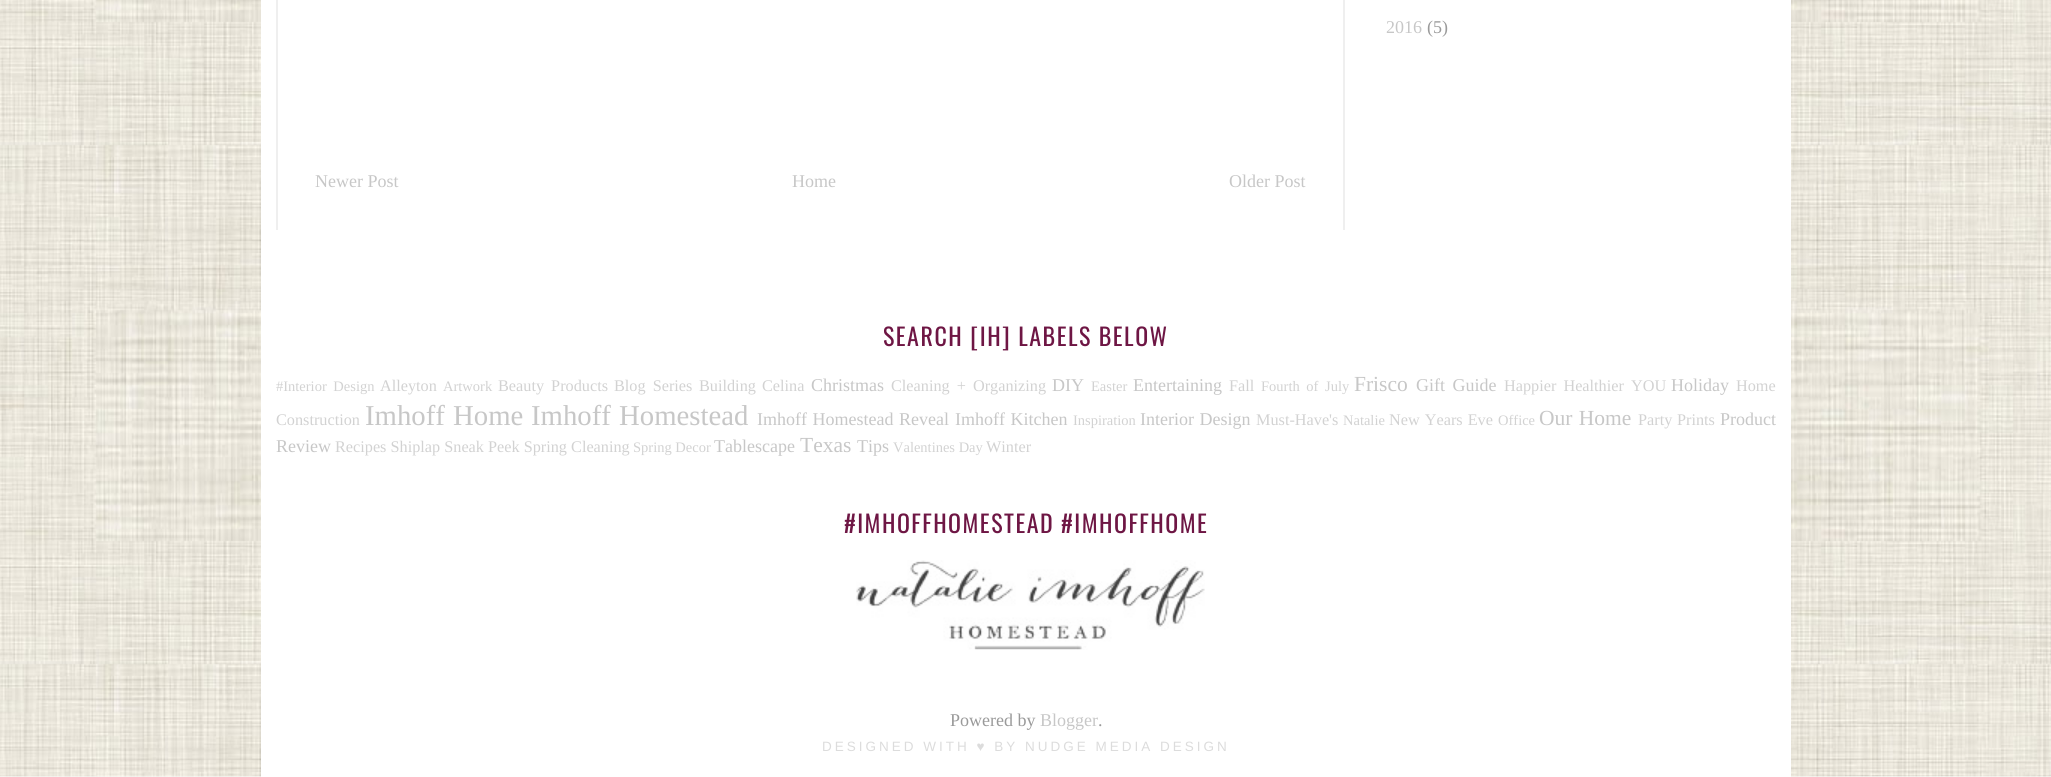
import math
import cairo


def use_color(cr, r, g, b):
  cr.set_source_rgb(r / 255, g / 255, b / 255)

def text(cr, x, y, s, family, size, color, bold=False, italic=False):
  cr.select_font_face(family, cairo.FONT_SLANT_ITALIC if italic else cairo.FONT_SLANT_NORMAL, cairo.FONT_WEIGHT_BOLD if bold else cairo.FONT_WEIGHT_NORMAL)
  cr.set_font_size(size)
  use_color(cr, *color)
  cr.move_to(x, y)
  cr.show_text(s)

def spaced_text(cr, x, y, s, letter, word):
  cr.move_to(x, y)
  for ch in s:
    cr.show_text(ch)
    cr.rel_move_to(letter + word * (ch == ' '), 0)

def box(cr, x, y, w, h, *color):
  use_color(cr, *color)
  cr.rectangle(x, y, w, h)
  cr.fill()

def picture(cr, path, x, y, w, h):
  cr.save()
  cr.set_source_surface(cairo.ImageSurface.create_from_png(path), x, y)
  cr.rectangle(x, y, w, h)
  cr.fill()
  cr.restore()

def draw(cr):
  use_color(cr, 255, 255, 255)
  cr.paint()
  picture(cr, "img_01.png", 0, 0, 2051, 777)
  box(cr, 261, 0, 1530, 777, 255, 255, 255)
  box(cr, 1343, 0, 2, 230, 239, 239, 239)
  box(cr, 276, 0, 2, 230, 239, 239, 239)
  picture(cr, "img_02.png", 856, 560, 349, 90)
  text(cr, 1386, 33, "2016", "Liberation Serif", 18, (199, 199, 199))
  text(cr, 1427, 33, "(5)", "Liberation Serif", 18, (154, 154, 154))
  text(cr, 315, 187, "Newer Post", "Liberation Serif", 18, (199, 199, 199))
  text(cr, 792, 187, "Home", "Liberation Serif", 18, (199, 199, 199))
  text(cr, 1229, 187, "Older Post", "Liberation Serif", 18, (199, 199, 199))
  cr.select_font_face("Oswald")
  cr.set_font_size(24)
  use_color(cr, 110, 22, 68)
  spaced_text(cr, 883, 346, "SEARCH [IH] LABELS BELOW", 1.5, 0)
  cr.select_font_face("Liberation Serif")
  cr.set_font_size(14.5)
  use_color(cr, 210, 210, 210)
  spaced_text(cr, 276, 391, "#Interior Design", 0, 3)
  text(cr, 380, 391, "Alleyton", "Liberation Serif", 16.25, (210, 210, 210))
  text(cr, 443, 391, "Artwork", "Liberation Serif", 14.5, (210, 210, 210))
  cr.set_font_size(16.25)
  spaced_text(cr, 498, 391, "Beauty Products", 0, 3)
  spaced_text(cr, 614, 391, "Blog Series", 0, 3)
  text(cr, 699, 391, "Building", "Liberation Serif", 16.25, (210, 210, 210))
  text(cr, 762, 391, "Celina", "Liberation Serif", 16.25, (210, 210, 210))
  text(cr, 811, 391, "Christmas", "Liberation Serif", 18, (199, 199, 199))
  cr.set_font_size(16.25)
  use_color(cr, 210, 210, 210)
  spaced_text(cr, 891, 391, "Cleaning + Organizing", 0, 3)
  text(cr, 1052, 391, "DIY", "Liberation Serif", 18, (199, 199, 199))
  text(cr, 1091, 391, "Easter", "Liberation Serif", 14.5, (210, 210, 210))
  text(cr, 1133, 391, "Entertaining", "Liberation Serif", 18, (199, 199, 199))
  text(cr, 1229, 391, "Fall", "Liberation Serif", 16.25, (210, 210, 210))
  cr.set_font_size(14.5)
  spaced_text(cr, 1261, 391, "Fourth of July", 0, 3)
  text(cr, 1354, 391, "Frisco", "Liberation Serif", 21.5, (199, 199, 199))
  cr.set_font_size(18)
  spaced_text(cr, 1416, 391, "Gift Guide", 0, 3)
  cr.set_font_size(16.25)
  use_color(cr, 210, 210, 210)
  spaced_text(cr, 1504, 391, "Happier Healthier YOU", 0, 3)
  text(cr, 1671, 391, "Holiday", "Liberation Serif", 18, (199, 199, 199))
  text(cr, 1736, 391, "Home", "Liberation Serif", 16.25, (210, 210, 210))
  text(cr, 276, 425, "Construction", "Liberation Serif", 16.25, (210, 210, 210))
  cr.set_font_size(28.75)
  use_color(cr, 199, 199, 199)
  spaced_text(cr, 365, 425, "Imhoff Home", 0, 1)
  spaced_text(cr, 531, 425, "Imhoff Homestead", 0, 1)
  cr.set_font_size(18)
  spaced_text(cr, 757, 425, "Imhoff Homestead Reveal", 0, 1)
  spaced_text(cr, 955, 425, "Imhoff Kitchen", 0, 1)
  text(cr, 1073, 425, "Inspiration", "Liberation Serif", 14.5, (210, 210, 210))
  cr.set_font_size(18)
  use_color(cr, 199, 199, 199)
  spaced_text(cr, 1140, 425, "Interior Design", 0, 1)
  text(cr, 1256, 425, "Must-Have's", "Liberation Serif", 16.25, (210, 210, 210))
  text(cr, 1343, 425, "Natalie", "Liberation Serif", 14.5, (210, 210, 210))
  cr.set_font_size(16.25)
  spaced_text(cr, 1389, 425, "New Years Eve", 0, 1)
  text(cr, 1498, 425, "Office", "Liberation Serif", 14.5, (210, 210, 210))
  cr.set_font_size(21.5)
  use_color(cr, 199, 199, 199)
  spaced_text(cr, 1539, 425, "Our Home", 0, 1)
  text(cr, 1638, 425, "Party", "Liberation Serif", 16.25, (210, 210, 210))
  text(cr, 1677, 425, "Prints", "Liberation Serif", 16.25, (210, 210, 210))
  text(cr, 1720, 425, "Product", "Liberation Serif", 18, (199, 199, 199))
  text(cr, 276, 452, "Review", "Liberation Serif", 18, (199, 199, 199))
  text(cr, 335, 452, "Recipes Shiplap Sneak Peek Spring Cleaning", "Liberation Serif", 16.25, (210, 210, 210))
  text(cr, 633, 452, "Spring Decor", "Liberation Serif", 14.5, (210, 210, 210))
  text(cr, 714, 452, "Tablescape", "Liberation Serif", 18, (199, 199, 199))
  text(cr, 800, 452, "Texas", "Liberation Serif", 21.5, (199, 199, 199))
  text(cr, 857, 452, "Tips", "Liberation Serif", 18, (199, 199, 199))
  text(cr, 893, 452, "Valentines Day", "Liberation Serif", 14.5, (210, 210, 210))
  text(cr, 986, 452, "Winter", "Liberation Serif", 16.25, (210, 210, 210))
  cr.select_font_face("Oswald")
  cr.set_font_size(24)
  use_color(cr, 110, 22, 68)
  spaced_text(cr, 844, 533, "#IMHOFFHOMESTEAD #IMHOFFHOME", 1.5, 0)
  text(cr, 950, 726, "Powered by", "Liberation Serif", 18, (154, 154, 154))
  text(cr, 1040, 726, "Blogger", "Liberation Serif", 18, (199, 199, 199))
  text(cr, 1098, 726, ".", "Liberation Serif", 18, (154, 154, 154))
  cr.select_font_face("Liberation Sans")
  cr.set_font_size(13.5)
  use_color(cr, 220, 220, 220)
  spaced_text(cr, 822, 751, "DESIGNED WITH ♥ BY NUDGE MEDIA DESIGN", 3, 0)


surface = cairo.ImageSurface(cairo.FORMAT_RGB24, 2051, 777)
cr = cairo.Context(surface)
options = cairo.FontOptions()
options.set_hint_metrics(cairo.HINT_METRICS_OFF)
options.set_hint_style(cairo.HINT_STYLE_NONE)
cr.set_font_options(options)
cr.set_miter_limit(4)
draw(cr)
surface.write_to_png("out.png")
